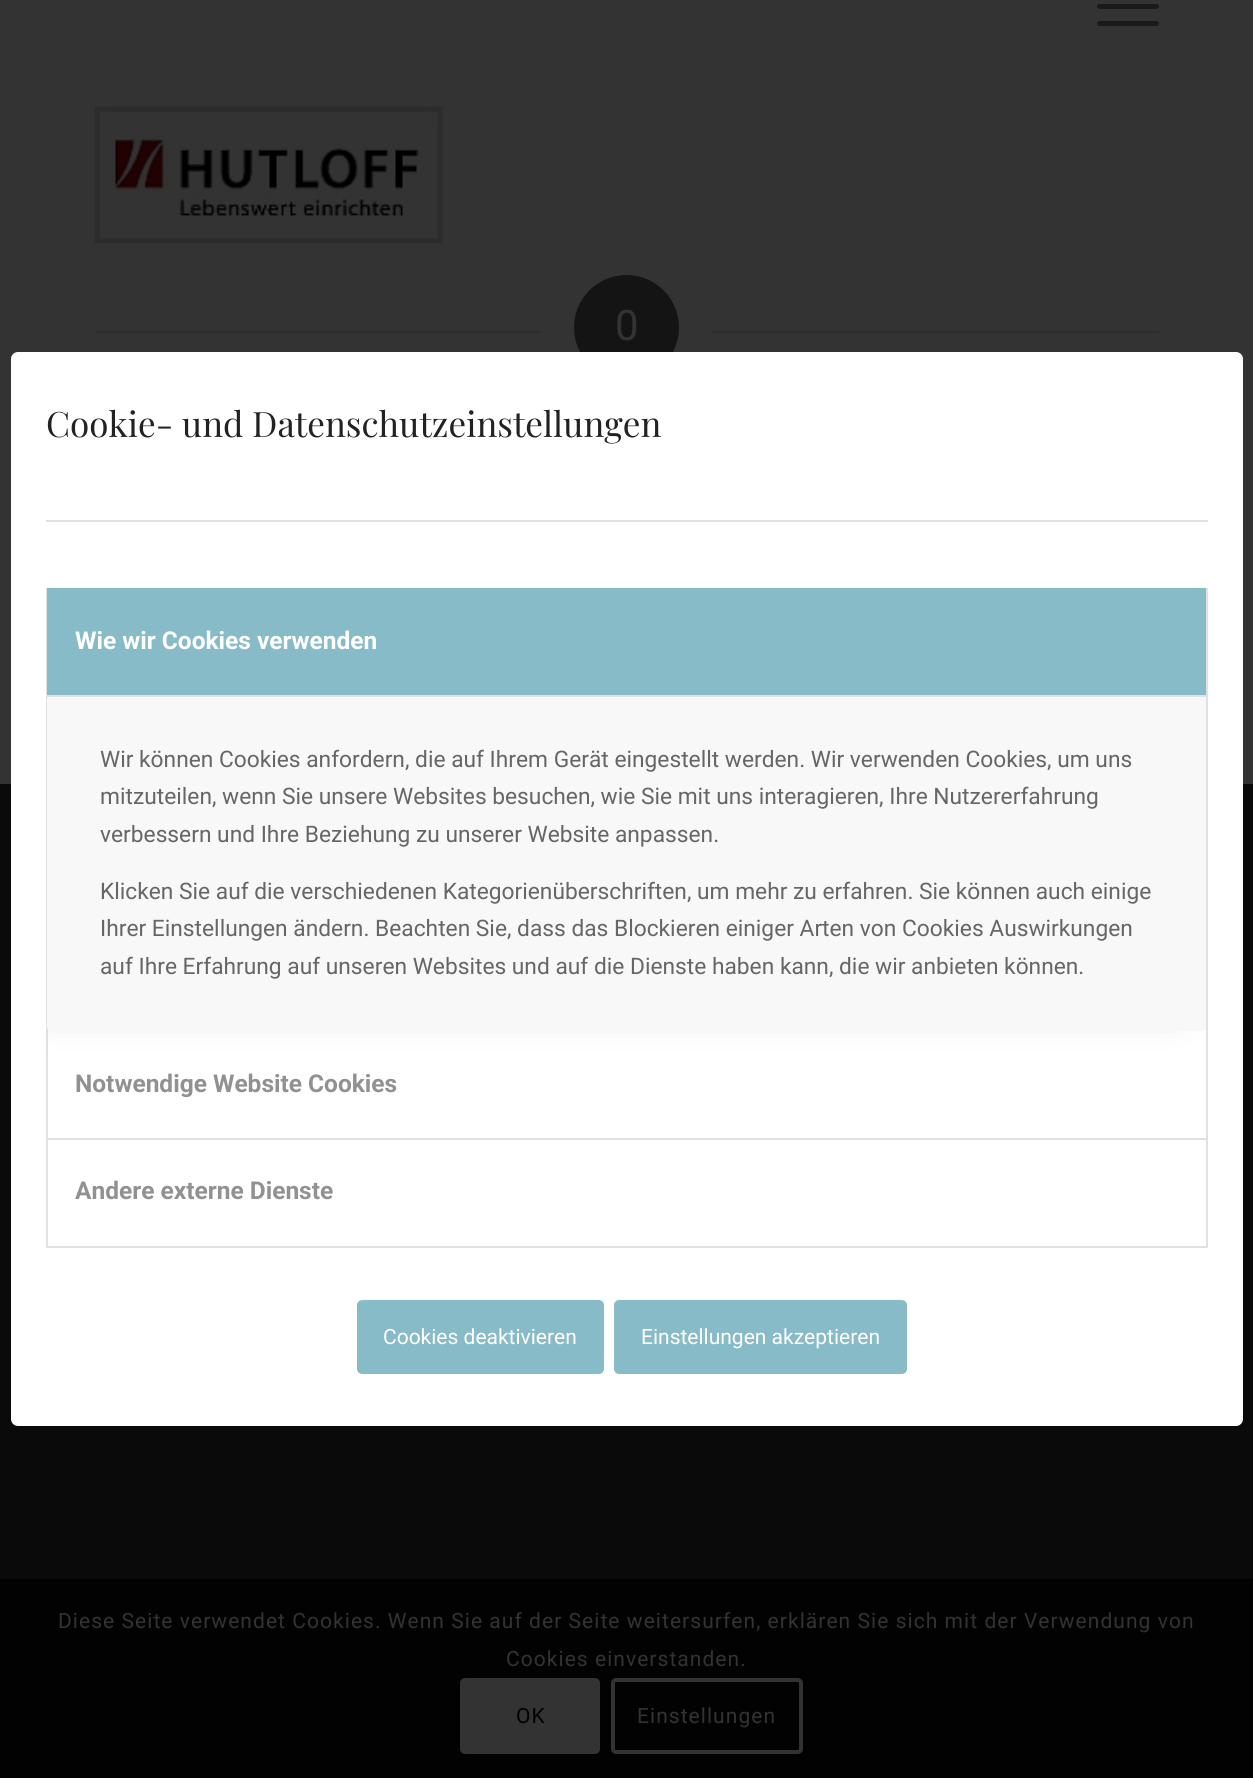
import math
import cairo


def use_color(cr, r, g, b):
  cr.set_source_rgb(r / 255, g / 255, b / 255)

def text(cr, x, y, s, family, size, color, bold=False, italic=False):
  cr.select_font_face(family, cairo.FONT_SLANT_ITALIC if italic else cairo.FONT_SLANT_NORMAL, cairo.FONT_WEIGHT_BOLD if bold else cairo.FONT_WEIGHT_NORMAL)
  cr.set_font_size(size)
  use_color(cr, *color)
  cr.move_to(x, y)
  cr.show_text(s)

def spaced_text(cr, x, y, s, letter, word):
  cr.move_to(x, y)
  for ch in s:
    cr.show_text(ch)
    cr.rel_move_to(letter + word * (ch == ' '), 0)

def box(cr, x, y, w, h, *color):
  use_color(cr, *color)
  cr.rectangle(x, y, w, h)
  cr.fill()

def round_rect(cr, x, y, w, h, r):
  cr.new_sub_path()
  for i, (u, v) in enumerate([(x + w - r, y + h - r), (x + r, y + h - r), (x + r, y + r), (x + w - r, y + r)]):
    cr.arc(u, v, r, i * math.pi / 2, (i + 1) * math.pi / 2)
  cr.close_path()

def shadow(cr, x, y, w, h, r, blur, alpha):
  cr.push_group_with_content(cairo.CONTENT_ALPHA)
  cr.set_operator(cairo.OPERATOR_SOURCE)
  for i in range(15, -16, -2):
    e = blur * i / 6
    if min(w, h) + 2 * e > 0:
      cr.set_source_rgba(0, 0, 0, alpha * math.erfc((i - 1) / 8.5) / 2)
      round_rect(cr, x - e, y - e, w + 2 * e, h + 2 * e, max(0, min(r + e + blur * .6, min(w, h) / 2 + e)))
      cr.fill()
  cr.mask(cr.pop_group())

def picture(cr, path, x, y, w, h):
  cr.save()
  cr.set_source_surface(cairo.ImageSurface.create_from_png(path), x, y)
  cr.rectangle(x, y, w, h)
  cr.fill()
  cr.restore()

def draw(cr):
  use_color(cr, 10, 10, 10)
  cr.paint()
  box(cr, 0, 0, 1253, 784, 51, 51, 51)
  use_color(cr, 26, 26, 26)
  round_rect(cr, 1097, 4, 62, 5, 2.5)
  cr.fill()
  round_rect(cr, 1097, 21, 62, 5, 2.5)
  cr.fill()
  picture(cr, "img_01.png", 94, 106, 349, 138)
  box(cr, 95, 331, 446, 2, 45, 45, 45)
  use_color(cr, 20, 20, 20)
  cr.arc(626.5, 327.5, 52.5, 0, 2 * math.pi)
  cr.fill()
  box(cr, 712, 331, 447, 2, 45, 45, 45)
  use_color(cr, 255, 255, 255)
  round_rect(cr, 11, 352, 1232, 1074, 7)
  cr.fill()
  box(cr, 46, 520, 1162, 2, 225, 225, 225)
  box(cr, 1206, 588, 2, 660, 225, 225, 225)
  box(cr, 46, 1246, 1162, 2, 225, 225, 225)
  box(cr, 46, 588, 2, 660, 225, 225, 225)
  cr.save()
  cr.rectangle(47, 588, 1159, 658)
  cr.clip()
  use_color(cr, 0, 0, 0)
  shadow(cr, 51, 712, 1123, 301, 0, 17.5, 0.2)
  cr.restore()
  box(cr, 47, 588, 1159, 107, 136, 187, 200)
  use_color(cr, 248, 248, 248)
  round_rect(cr, 47, 695, 1159, 336, 4)
  cr.fill()
  box(cr, 47, 695, 1159, 2, 225, 225, 225)
  box(cr, 47, 1138, 1159, 2, 225, 225, 225)
  use_color(cr, 136, 187, 200)
  round_rect(cr, 359, 1302, 243, 70, 3)
  cr.fill_preserve()
  cr.set_line_width(4)
  cr.stroke()
  round_rect(cr, 616, 1302, 289, 70, 3)
  cr.fill_preserve()
  cr.stroke()
  box(cr, 0, 1579, 1253, 199, 2, 2, 2)
  use_color(cr, 51, 51, 51)
  round_rect(cr, 460, 1678, 140, 76, 5)
  cr.fill()
  round_rect(cr, 613, 1680, 188, 72, 3)
  cr.stroke()
  text(cr, 615, 340, "0", "Roboto", 42, (51, 51, 51))
  text(cr, 46, 437, "Cookie- und Datenschutzeinstellungen", "Playfair Display", 35, (34, 34, 34))
  text(cr, 75, 649, "Wie wir Cookies verwenden", "Roboto", 24.5, (255, 255, 255), bold=True)
  text(cr, 100, 767, "Wir können Cookies anfordern, die auf Ihrem Gerät eingestellt werden. Wir verwenden Cookies, um uns", "Roboto", 22.75, (102, 102, 102))
  text(cr, 100, 804, "mitzuteilen, wenn Sie unsere Websites besuchen, wie Sie mit uns interagieren, Ihre Nutzererfahrung", "Roboto", 22.75, (102, 102, 102))
  text(cr, 100, 842, "verbessern und Ihre Beziehung zu unserer Website anpassen.", "Roboto", 22.75, (102, 102, 102))
  text(cr, 100, 899, "Klicken Sie auf die verschiedenen Kategorienüberschriften, um mehr zu erfahren. Sie können auch einige", "Roboto", 22.75, (102, 102, 102))
  text(cr, 100, 936, "Ihrer Einstellungen ändern. Beachten Sie, dass das Blockieren einiger Arten von Cookies Auswirkungen", "Roboto", 22.75, (102, 102, 102))
  text(cr, 100, 974, "auf Ihre Erfahrung auf unseren Websites und auf die Dienste haben kann, die wir anbieten können.", "Roboto", 22.75, (102, 102, 102))
  text(cr, 75, 1092, "Notwendige Website Cookies", "Roboto", 24.5, (145, 145, 145), bold=True)
  text(cr, 75, 1199, "Andere externe Dienste", "Roboto", 24.5, (145, 145, 145), bold=True)
  text(cr, 383, 1344, "Cookies deaktivieren", "Roboto", 21, (255, 255, 255))
  text(cr, 641, 1344, "Einstellungen akzeptieren", "Roboto", 21, (255, 255, 255))
  use_color(cr, 51, 51, 51)
  spaced_text(cr, 58, 1628, "Diese Seite verwendet Cookies. Wenn Sie auf der Seite weitersurfen, erklären Sie sich mit der Verwendung von", 1.05, 0)
  spaced_text(cr, 506, 1666, "Cookies einverstanden.", 1.05, 0)
  use_color(cr, 0, 0, 0)
  spaced_text(cr, 516, 1723, "OK", 1.05, 0)
  use_color(cr, 51, 51, 51)
  spaced_text(cr, 637, 1723, "Einstellungen", 1.05, 0)


surface = cairo.ImageSurface(cairo.FORMAT_RGB24, 1253, 1778)
cr = cairo.Context(surface)
options = cairo.FontOptions()
options.set_hint_metrics(cairo.HINT_METRICS_OFF)
options.set_hint_style(cairo.HINT_STYLE_NONE)
cr.set_font_options(options)
cr.set_miter_limit(4)
draw(cr)
surface.write_to_png("out.png")
